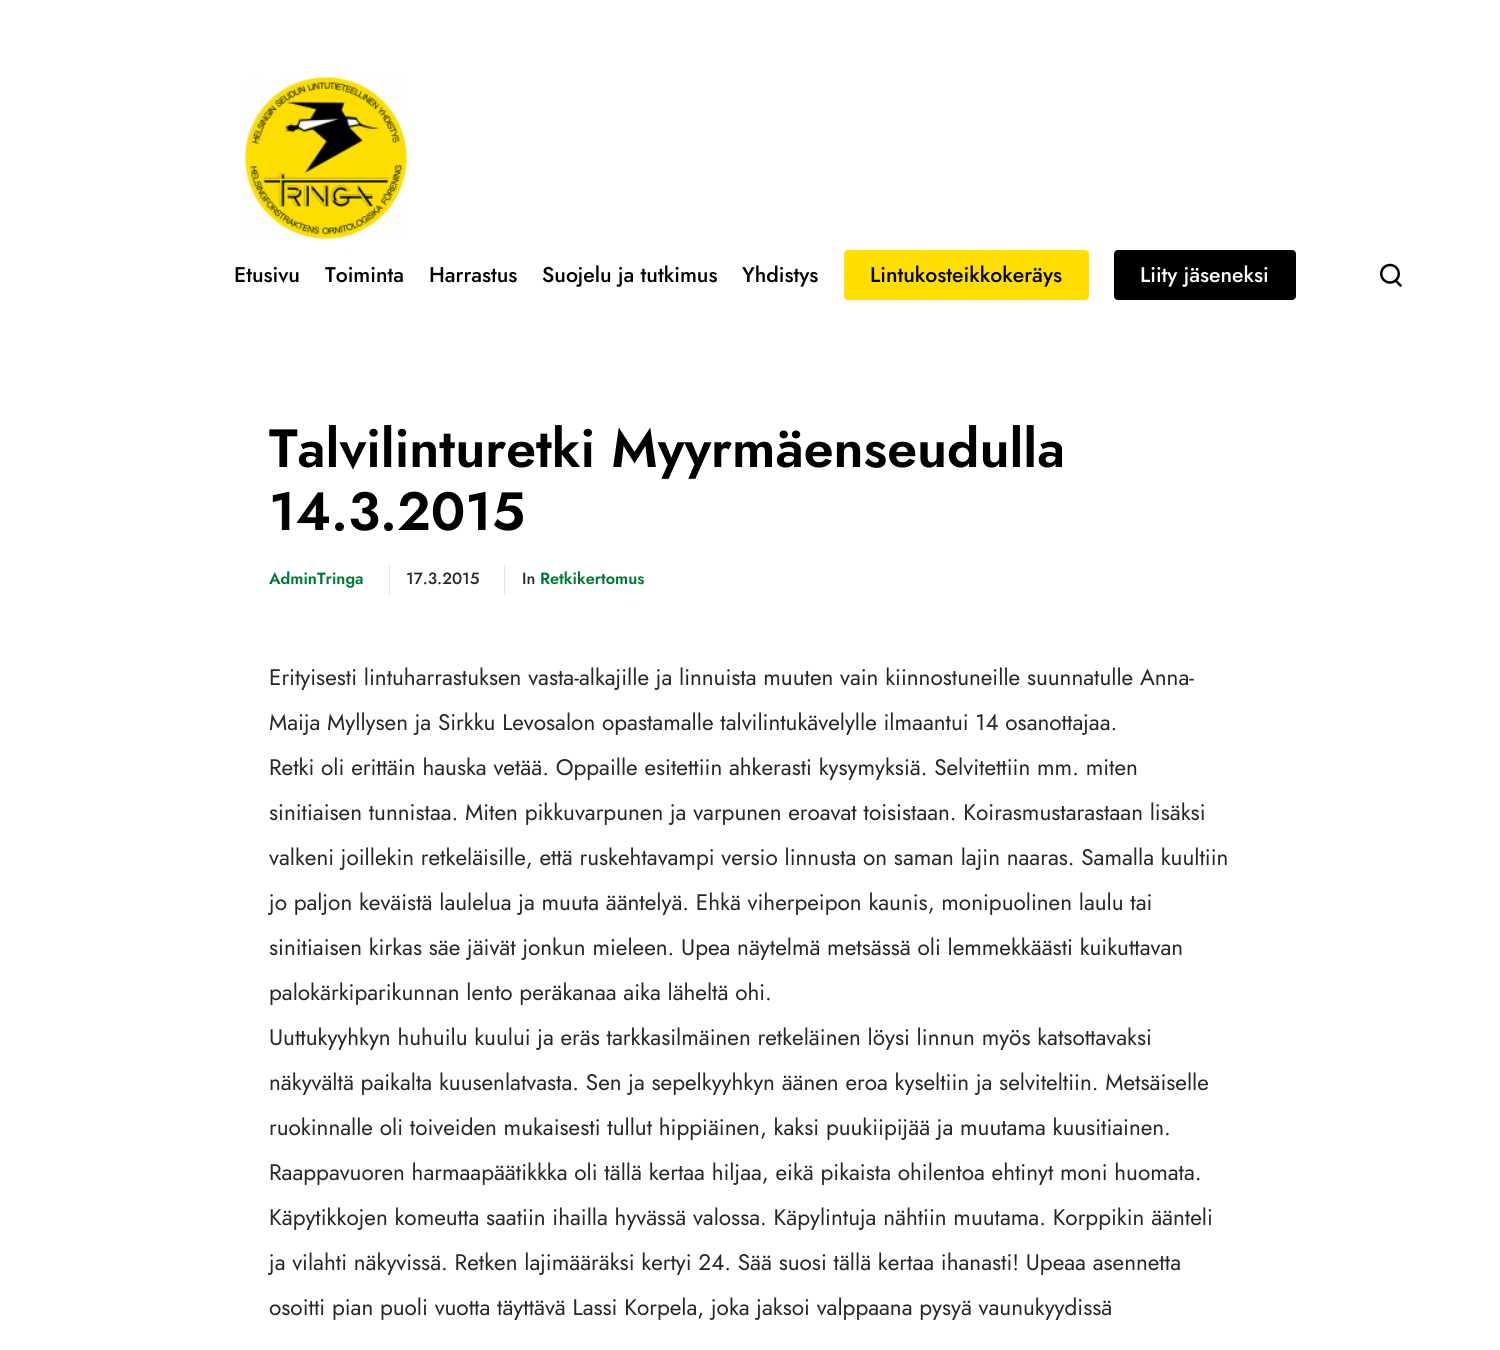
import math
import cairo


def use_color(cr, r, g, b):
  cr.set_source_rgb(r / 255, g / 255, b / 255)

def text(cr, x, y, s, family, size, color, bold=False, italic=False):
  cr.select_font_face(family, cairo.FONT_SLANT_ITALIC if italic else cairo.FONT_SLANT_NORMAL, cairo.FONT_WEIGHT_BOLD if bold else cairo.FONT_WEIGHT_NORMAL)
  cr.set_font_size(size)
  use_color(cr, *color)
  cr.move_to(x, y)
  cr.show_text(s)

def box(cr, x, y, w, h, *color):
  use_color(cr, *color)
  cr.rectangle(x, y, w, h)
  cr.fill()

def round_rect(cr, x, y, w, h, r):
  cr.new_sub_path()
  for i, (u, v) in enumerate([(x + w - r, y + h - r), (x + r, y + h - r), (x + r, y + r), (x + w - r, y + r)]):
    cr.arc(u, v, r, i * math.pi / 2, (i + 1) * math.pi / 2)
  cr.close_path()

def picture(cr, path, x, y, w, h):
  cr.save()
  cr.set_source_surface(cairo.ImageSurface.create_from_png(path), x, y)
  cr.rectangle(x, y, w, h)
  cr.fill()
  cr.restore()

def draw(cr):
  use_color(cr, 255, 255, 255)
  cr.paint()
  picture(cr, "img_01.png", 244, 77, 164, 162)
  use_color(cr, 255, 222, 0)
  round_rect(cr, 844, 250, 245, 50, 4)
  cr.fill()
  use_color(cr, 0, 0, 0)
  round_rect(cr, 1114, 250, 182, 50, 4)
  cr.fill()
  picture(cr, "img_02.png", 1380, 263, 22, 24)
  box(cr, 389, 565, 1, 30, 230, 230, 230)
  box(cr, 504, 565, 1, 30, 230, 230, 230)
  text(cr, 234, 282, "Etusivu", "Jost Medium", 21.25, (0, 0, 0))
  text(cr, 325, 282, "Toiminta", "Jost Medium", 21.25, (0, 0, 0))
  text(cr, 429, 282, "Harrastus", "Jost Medium", 21.25, (0, 0, 0))
  text(cr, 542, 282, "Suojelu ja tutkimus", "Jost Medium", 21.25, (0, 0, 0))
  text(cr, 742, 282, "Yhdistys", "Jost Medium", 21.25, (0, 0, 0))
  text(cr, 870, 282, "Lintukosteikkokeräys", "Jost Medium", 21.25, (0, 0, 0))
  text(cr, 1140, 282, "Liity jäseneksi", "Jost Medium", 21.25, (255, 255, 255))
  text(cr, 269, 467, "Talvilinturetki Myyrmäenseudulla", "Jost SemiBold", 53.75, (0, 0, 0))
  text(cr, 269, 530, "14.3.2015", "Jost SemiBold", 53.75, (0, 0, 0))
  text(cr, 269, 584, "AdminTringa", "Jost SemiBold", 16.25, (0, 122, 51))
  text(cr, 406, 584, "17.3.2015", "Jost Medium", 16.25, (39, 39, 39))
  text(cr, 522, 584, "In", "Jost Medium", 16.25, (39, 39, 39))
  text(cr, 540, 584, "Retkikertomus", "Jost SemiBold", 16.25, (0, 122, 51))
  text(cr, 269, 685, "Erityisesti lintuharrastuksen vasta-alkajille ja linnuista muuten vain kiinnostuneille suunnatulle Anna-", "Jost", 22.5, (39, 39, 39))
  text(cr, 269, 730, "Maija Myllysen ja Sirkku Levosalon opastamalle talvilintukävelylle ilmaantui 14 osanottajaa.", "Jost", 22.5, (39, 39, 39))
  text(cr, 269, 775, "Retki oli erittäin hauska vetää. Oppaille esitettiin ahkerasti kysymyksiä. Selvitettiin mm. miten", "Jost", 22.5, (39, 39, 39))
  text(cr, 269, 820, "sinitiaisen tunnistaa. Miten pikkuvarpunen ja varpunen eroavat toisistaan. Koirasmustarastaan lisäksi", "Jost", 22.5, (39, 39, 39))
  text(cr, 269, 865, "valkeni joillekin retkeläisille, että ruskehtavampi versio linnusta on saman lajin naaras. Samalla kuultiin", "Jost", 22.5, (39, 39, 39))
  text(cr, 269, 910, "jo paljon keväistä laulelua ja muuta ääntelyä. Ehkä viherpeipon kaunis, monipuolinen laulu tai", "Jost", 22.5, (39, 39, 39))
  text(cr, 269, 955, "sinitiaisen kirkas säe jäivät jonkun mieleen. Upea näytelmä metsässä oli lemmekkäästi kuikuttavan", "Jost", 22.5, (39, 39, 39))
  text(cr, 269, 1000, "palokärkiparikunnan lento peräkanaa aika läheltä ohi.", "Jost", 22.5, (39, 39, 39))
  text(cr, 269, 1045, "Uuttukyyhkyn huhuilu kuului ja eräs tarkkasilmäinen retkeläinen löysi linnun myös katsottavaksi", "Jost", 22.5, (39, 39, 39))
  text(cr, 269, 1090, "näkyvältä paikalta kuusenlatvasta. Sen ja sepelkyyhkyn äänen eroa kyseltiin ja selviteltiin. Metsäiselle", "Jost", 22.5, (39, 39, 39))
  text(cr, 269, 1135, "ruokinnalle oli toiveiden mukaisesti tullut hippiäinen, kaksi puukiipijää ja muutama kuusitiainen.", "Jost", 22.5, (39, 39, 39))
  text(cr, 269, 1180, "Raappavuoren harmaapäätikkka oli tällä kertaa hiljaa, eikä pikaista ohilentoa ehtinyt moni huomata.", "Jost", 22.5, (39, 39, 39))
  text(cr, 269, 1225, "Käpytikkojen komeutta saatiin ihailla hyvässä valossa. Käpylintuja nähtiin muutama. Korppikin äänteli", "Jost", 22.5, (39, 39, 39))
  text(cr, 269, 1270, "ja vilahti näkyvissä. Retken lajimääräksi kertyi 24. Sää suosi tällä kertaa ihanasti! Upeaa asennetta", "Jost", 22.5, (39, 39, 39))
  text(cr, 269, 1315, "osoitti pian puoli vuotta täyttävä Lassi Korpela, joka jaksoi valppaana pysyä vaunukyydissä", "Jost", 22.5, (39, 39, 39))


surface = cairo.ImageSurface(cairo.FORMAT_RGB24, 1500, 1350)
cr = cairo.Context(surface)
options = cairo.FontOptions()
options.set_hint_metrics(cairo.HINT_METRICS_OFF)
options.set_hint_style(cairo.HINT_STYLE_NONE)
cr.set_font_options(options)
cr.set_miter_limit(4)
draw(cr)
surface.write_to_png("out.png")
